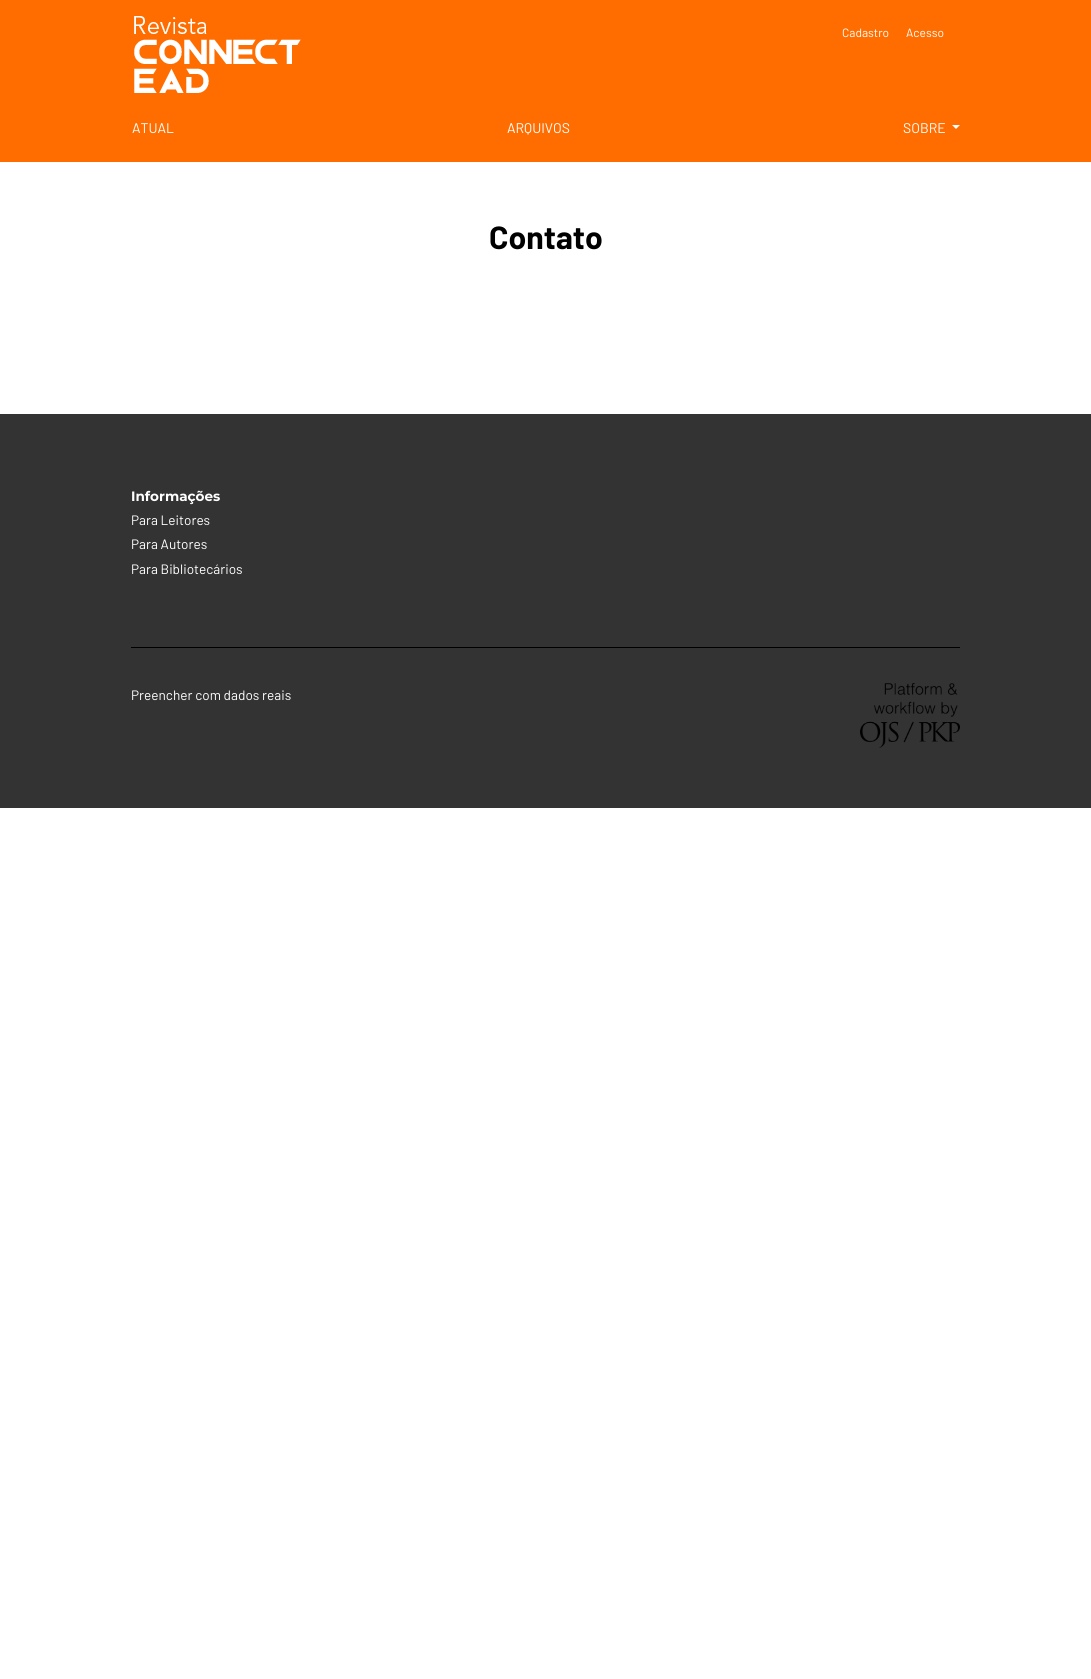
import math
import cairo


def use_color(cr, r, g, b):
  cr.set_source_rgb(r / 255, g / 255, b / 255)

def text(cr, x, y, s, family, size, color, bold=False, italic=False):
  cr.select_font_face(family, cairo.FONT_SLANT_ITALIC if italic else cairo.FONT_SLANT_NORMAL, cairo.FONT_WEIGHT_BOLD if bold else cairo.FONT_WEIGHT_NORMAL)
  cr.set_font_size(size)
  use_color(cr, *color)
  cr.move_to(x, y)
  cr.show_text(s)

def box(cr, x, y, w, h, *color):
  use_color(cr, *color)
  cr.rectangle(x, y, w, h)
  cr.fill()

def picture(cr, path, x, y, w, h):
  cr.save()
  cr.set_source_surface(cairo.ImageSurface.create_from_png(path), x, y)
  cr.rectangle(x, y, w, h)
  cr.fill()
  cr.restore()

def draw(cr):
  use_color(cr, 255, 255, 255)
  cr.paint()
  box(cr, 0, 0, 1091, 162, 255, 109, 0)
  picture(cr, "img_01.png", 134, 16, 167, 77)
  use_color(cr, 255, 255, 255)
  cr.new_path()
  cr.move_to(952, 125)
  cr.line_to(960, 125)
  cr.line_to(956, 129)
  cr.close_path()
  cr.fill()
  box(cr, 0, 414, 1091, 394, 51, 51, 51)
  box(cr, 131, 647, 829, 1, 0, 0, 0)
  picture(cr, "img_02.png", 860, 683, 100, 65)
  text(cr, 842, 37, "Cadastro", "Barlow", 12, (255, 255, 255))
  text(cr, 906, 37, "Acesso", "Barlow", 12, (255, 255, 255))
  text(cr, 132, 133, "ATUAL", "Barlow", 14, (255, 255, 255))
  text(cr, 507, 133, "ARQUIVOS", "Barlow", 14, (255, 255, 255))
  text(cr, 903, 133, "SOBRE", "Barlow", 14, (255, 255, 255))
  text(cr, 489, 249, "Contato", "Barlow", 32, (0, 0, 0), bold=True)
  text(cr, 131, 501, "Informações", "Montserrat", 13.6, (255, 255, 255), bold=True)
  text(cr, 131, 525, "Para Leitores", "Barlow", 13.6, (255, 255, 255))
  text(cr, 131, 549, "Para Autores", "Barlow", 13.6, (255, 255, 255))
  text(cr, 131, 574, "Para Bibliotecários", "Barlow", 13.6, (255, 255, 255))
  text(cr, 131, 700, "Preencher com dados reais", "Barlow", 13.6, (255, 255, 255))


surface = cairo.ImageSurface(cairo.FORMAT_RGB24, 1091, 1679)
cr = cairo.Context(surface)
options = cairo.FontOptions()
options.set_hint_metrics(cairo.HINT_METRICS_OFF)
options.set_hint_style(cairo.HINT_STYLE_NONE)
cr.set_font_options(options)
cr.set_miter_limit(4)
draw(cr)
surface.write_to_png("out.png")
